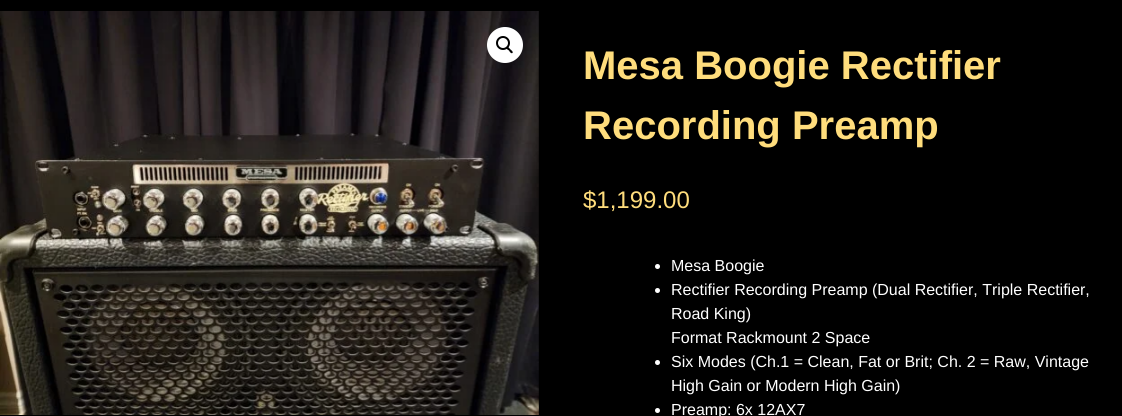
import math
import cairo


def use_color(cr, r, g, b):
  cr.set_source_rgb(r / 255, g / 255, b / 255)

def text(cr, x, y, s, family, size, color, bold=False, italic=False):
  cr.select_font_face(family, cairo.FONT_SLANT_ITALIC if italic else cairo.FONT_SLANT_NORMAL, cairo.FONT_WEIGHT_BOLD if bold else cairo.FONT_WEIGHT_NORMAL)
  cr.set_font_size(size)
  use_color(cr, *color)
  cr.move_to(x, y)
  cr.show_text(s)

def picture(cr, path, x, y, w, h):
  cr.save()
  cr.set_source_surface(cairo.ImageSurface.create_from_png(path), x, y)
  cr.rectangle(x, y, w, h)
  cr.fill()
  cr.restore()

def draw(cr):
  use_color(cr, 0, 0, 0)
  cr.paint()
  picture(cr, "img_01.png", 0, 11, 539, 404)
  use_color(cr, 255, 255, 255)
  cr.arc(505, 45, 18, 0, 2 * math.pi)
  cr.fill()
  cr.arc(503, 43, 6, 0, 2 * math.pi)
  use_color(cr, 0, 0, 0)
  cr.stroke()
  cr.new_path()
  cr.move_to(506.5, 47)
  cr.curve_to(508, 46, 509.5, 48.5, 510.5, 49.5)
  cr.curve_to(511, 50, 513.5, 51.5, 512.5, 53)
  cr.curve_to(511, 54, 509.5, 51.5, 509, 50.5)
  cr.curve_to(508, 50, 505.5, 48.5, 506.5, 47)
  cr.close_path()
  cr.fill()
  use_color(cr, 255, 255, 255)
  cr.arc(657.5, 266.5, 2.5, 0, 2 * math.pi)
  cr.fill()
  cr.arc(657.5, 290.5, 2.5, 0, 2 * math.pi)
  cr.fill()
  cr.arc(657.5, 362.5, 2.5, 0, 2 * math.pi)
  cr.fill()
  cr.arc(657.5, 410.5, 2.5, 0, 2 * math.pi)
  cr.fill()
  text(cr, 583, 79, "Mesa Boogie Rectifier", "Liberation Sans", 40, (255, 221, 124), bold=True)
  text(cr, 583, 139, "Recording Preamp", "Liberation Sans", 40, (255, 221, 124), bold=True)
  text(cr, 583, 208, "$1,199.00", "Liberation Sans", 24, (255, 221, 124))
  text(cr, 671, 271, "Mesa Boogie", "Liberation Sans", 16, (255, 255, 255))
  text(cr, 671, 295, "Rectifier Recording Preamp (Dual Rectifier, Triple Rectifier,", "Liberation Sans", 16, (255, 255, 255))
  text(cr, 671, 319, "Road King)", "Liberation Sans", 16, (255, 255, 255))
  text(cr, 671, 343, "Format Rackmount 2 Space", "Liberation Sans", 16, (255, 255, 255))
  text(cr, 671, 367, "Six Modes (Ch.1 = Clean, Fat or Brit; Ch. 2 = Raw, Vintage", "Liberation Sans", 16, (255, 255, 255))
  text(cr, 671, 391, "High Gain or Modern High Gain)", "Liberation Sans", 16, (255, 255, 255))
  text(cr, 671, 415, "Preamp: 6x 12AX7", "Liberation Sans", 16, (255, 255, 255))


surface = cairo.ImageSurface(cairo.FORMAT_RGB24, 1122, 416)
cr = cairo.Context(surface)
options = cairo.FontOptions()
options.set_hint_metrics(cairo.HINT_METRICS_OFF)
options.set_hint_style(cairo.HINT_STYLE_NONE)
cr.set_font_options(options)
cr.set_miter_limit(4)
draw(cr)
surface.write_to_png("out.png")
